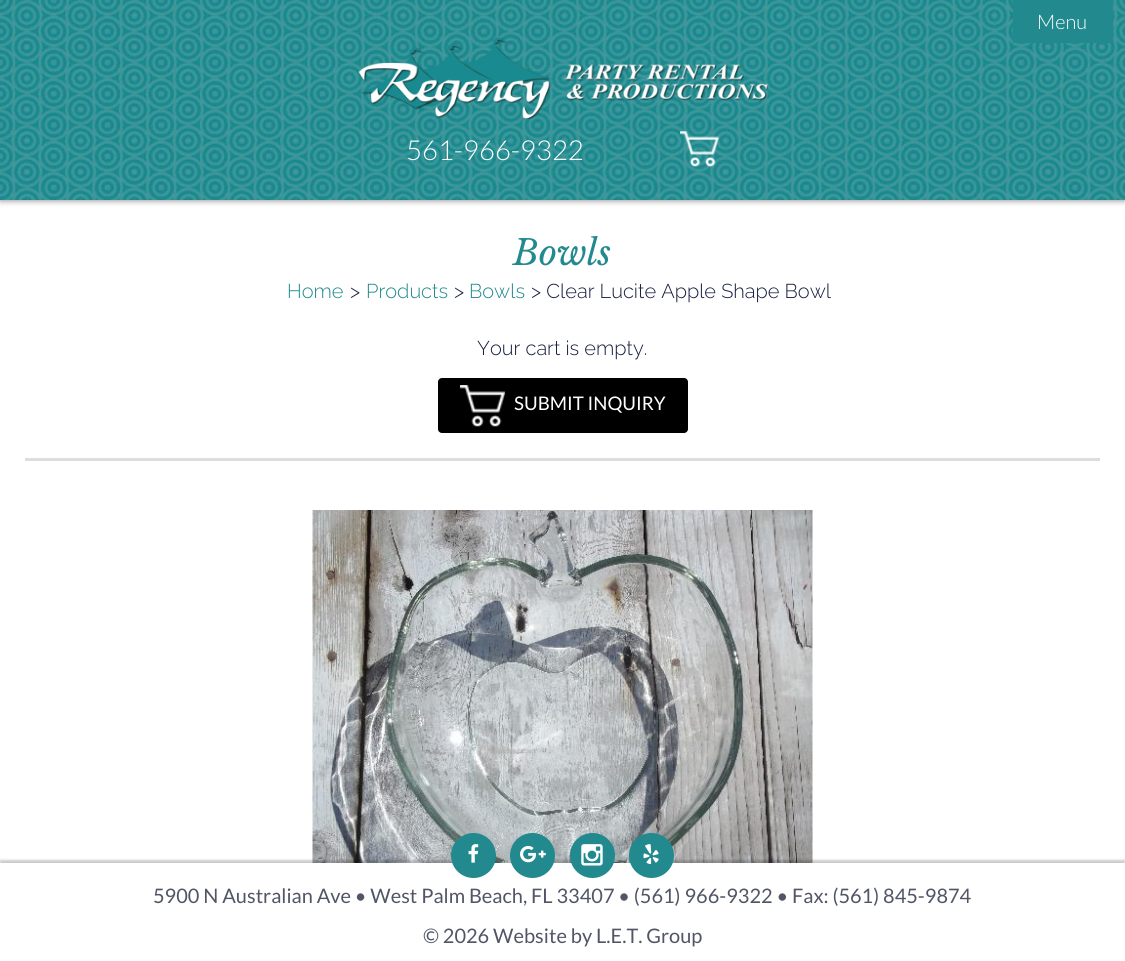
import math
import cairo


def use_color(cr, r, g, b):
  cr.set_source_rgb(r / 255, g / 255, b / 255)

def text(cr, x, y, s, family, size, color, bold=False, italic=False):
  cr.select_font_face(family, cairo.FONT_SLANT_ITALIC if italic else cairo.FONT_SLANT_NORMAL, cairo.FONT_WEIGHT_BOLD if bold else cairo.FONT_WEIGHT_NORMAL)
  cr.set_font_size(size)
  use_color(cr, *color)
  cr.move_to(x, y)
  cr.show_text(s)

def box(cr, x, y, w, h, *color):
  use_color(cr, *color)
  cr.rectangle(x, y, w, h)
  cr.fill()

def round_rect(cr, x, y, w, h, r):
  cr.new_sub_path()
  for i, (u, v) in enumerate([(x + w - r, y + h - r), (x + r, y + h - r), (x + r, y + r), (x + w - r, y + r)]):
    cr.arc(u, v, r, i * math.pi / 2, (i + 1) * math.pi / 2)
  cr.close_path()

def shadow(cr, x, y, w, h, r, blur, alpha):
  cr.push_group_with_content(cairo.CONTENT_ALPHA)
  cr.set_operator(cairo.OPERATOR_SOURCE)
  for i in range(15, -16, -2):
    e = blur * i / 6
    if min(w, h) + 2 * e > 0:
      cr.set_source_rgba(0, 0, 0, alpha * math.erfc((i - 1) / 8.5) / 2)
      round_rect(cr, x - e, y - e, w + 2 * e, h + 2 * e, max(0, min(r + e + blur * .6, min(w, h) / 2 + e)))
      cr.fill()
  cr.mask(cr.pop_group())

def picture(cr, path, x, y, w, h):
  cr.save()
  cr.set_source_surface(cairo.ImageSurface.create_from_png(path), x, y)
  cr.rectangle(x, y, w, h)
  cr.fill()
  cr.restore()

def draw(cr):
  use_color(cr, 255, 255, 255)
  cr.paint()
  use_color(cr, 0, 0, 0)
  shadow(cr, 0, 1, 1125, 200, 0, 3, 0.4)
  picture(cr, "img_01.png", 0, 0, 1125, 200)
  box(cr, 1013, 0, 100, 43, 34, 138, 142)
  picture(cr, "img_02.png", 358, 37, 410, 82)
  picture(cr, "img_03.png", 680, 131, 39, 36)
  box(cr, 25, 458, 1075, 3, 221, 221, 221)
  use_color(cr, 0, 0, 0)
  round_rect(cr, 438, 378, 250, 55, 4)
  cr.fill()
  picture(cr, "img_04.png", 460, 385, 45, 42)
  picture(cr, "img_05.png", 312, 510, 501, 353)
  use_color(cr, 0, 0, 0)
  shadow(cr, 0, 860, 1125, 99, 0, 1, 0.2)
  box(cr, 0, 863, 1125, 98, 255, 255, 255)
  use_color(cr, 34, 138, 142)
  cr.arc(473.5, 855.5, 22.5, 0, 2 * math.pi)
  cr.fill()
  picture(cr, "img_06.png", 468, 844, 11, 19)
  cr.arc(532.5, 855.5, 22.5, 0, 2 * math.pi)
  cr.fill()
  picture(cr, "img_07.png", 520, 845, 26, 18)
  cr.arc(592.5, 855.5, 22.5, 0, 2 * math.pi)
  cr.fill()
  picture(cr, "img_08.png", 581, 844, 22, 22)
  cr.arc(651.5, 855.5, 22.5, 0, 2 * math.pi)
  cr.fill()
  picture(cr, "img_09.png", 643, 844, 16, 21)
  text(cr, 1037, 29, "Menu", "Lato Light", 20, (255, 255, 255))
  text(cr, 406, 160, "561-966-9322", "Lato Light", 27.5, (255, 255, 255))
  text(cr, 513, 265, "Bowls", "Libre Baskerville", 35, (34, 138, 142), italic=True)
  text(cr, 287, 298, "Home", "Raleway Light", 20, (34, 138, 142))
  text(cr, 350, 298, ">", "Raleway Light", 20, (24, 31, 63))
  text(cr, 366, 298, "Products", "Raleway Light", 20, (34, 138, 142))
  text(cr, 454, 298, ">", "Raleway Light", 20, (24, 31, 63))
  text(cr, 469, 298, "Bowls", "Raleway Light", 20, (34, 138, 142))
  text(cr, 531, 298, "> Clear Lucite Apple Shape Bowl", "Raleway Light", 20, (24, 31, 63))
  text(cr, 477, 355, "Your cart is empty.", "Raleway Light", 20, (24, 31, 63))
  text(cr, 514, 410, "SUBMIT INQUIRY", "Lato", 18.75, (255, 255, 255))
  text(cr, 153, 903, "5900 N Australian Ave • West Palm Beach, FL 33407 • (561) 966-9322 • Fax: (561) 845-9874", "Lato", 20, (81, 85, 102))
  text(cr, 423, 943, "© 2026 Website by L.E.T. Group", "Lato", 20, (81, 85, 102))


surface = cairo.ImageSurface(cairo.FORMAT_RGB24, 1125, 961)
cr = cairo.Context(surface)
options = cairo.FontOptions()
options.set_hint_metrics(cairo.HINT_METRICS_OFF)
options.set_hint_style(cairo.HINT_STYLE_NONE)
cr.set_font_options(options)
cr.set_miter_limit(4)
draw(cr)
surface.write_to_png("out.png")
